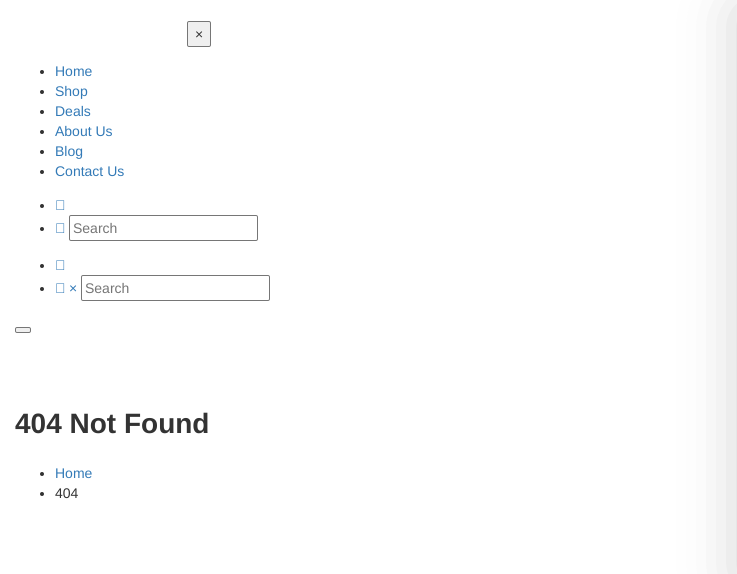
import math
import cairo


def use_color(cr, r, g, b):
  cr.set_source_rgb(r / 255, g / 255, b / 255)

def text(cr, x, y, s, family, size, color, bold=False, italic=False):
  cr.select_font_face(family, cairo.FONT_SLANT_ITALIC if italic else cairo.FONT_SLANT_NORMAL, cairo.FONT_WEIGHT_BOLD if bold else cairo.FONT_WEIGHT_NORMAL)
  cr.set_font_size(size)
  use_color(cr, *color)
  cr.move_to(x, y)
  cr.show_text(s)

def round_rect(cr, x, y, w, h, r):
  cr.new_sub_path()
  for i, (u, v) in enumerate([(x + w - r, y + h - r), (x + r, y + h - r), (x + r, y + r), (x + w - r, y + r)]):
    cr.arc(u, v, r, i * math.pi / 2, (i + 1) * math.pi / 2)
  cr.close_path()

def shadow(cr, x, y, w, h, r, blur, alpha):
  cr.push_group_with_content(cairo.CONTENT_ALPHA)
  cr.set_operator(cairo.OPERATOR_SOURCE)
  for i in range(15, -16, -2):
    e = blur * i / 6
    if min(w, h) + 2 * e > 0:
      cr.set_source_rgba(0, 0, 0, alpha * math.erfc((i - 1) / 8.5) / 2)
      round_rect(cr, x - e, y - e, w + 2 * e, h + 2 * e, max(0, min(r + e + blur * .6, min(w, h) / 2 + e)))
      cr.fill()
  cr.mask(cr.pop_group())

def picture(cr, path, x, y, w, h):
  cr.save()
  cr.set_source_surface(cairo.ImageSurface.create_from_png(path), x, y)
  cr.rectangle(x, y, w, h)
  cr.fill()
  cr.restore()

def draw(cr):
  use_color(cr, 255, 255, 255)
  cr.paint()
  use_color(cr, 239, 239, 239)
  round_rect(cr, 187.5, 21.5, 23, 25, 1.5)
  cr.fill_preserve()
  use_color(cr, 118, 118, 118)
  cr.set_line_width(1)
  cr.stroke()
  use_color(cr, 51, 51, 51)
  cr.arc(42, 72, 2, 0, 2 * math.pi)
  cr.fill()
  cr.arc(42, 92, 2, 0, 2 * math.pi)
  cr.fill()
  cr.arc(42, 112, 2, 0, 2 * math.pi)
  cr.fill()
  cr.arc(42, 132, 2, 0, 2 * math.pi)
  cr.fill()
  cr.arc(42, 152, 2, 0, 2 * math.pi)
  cr.fill()
  cr.arc(42, 172, 2, 0, 2 * math.pi)
  cr.fill()
  cr.arc(42, 206, 2, 0, 2 * math.pi)
  cr.fill()
  picture(cr, "img_01.png", 56, 200, 9, 10)
  cr.arc(42, 229, 2, 0, 2 * math.pi)
  cr.fill()
  picture(cr, "img_01.png", 56, 223, 9, 10)
  round_rect(cr, 69.5, 215.5, 188, 25, 1.5)
  use_color(cr, 118, 118, 118)
  cr.stroke()
  use_color(cr, 51, 51, 51)
  cr.arc(42, 266, 2, 0, 2 * math.pi)
  cr.fill()
  picture(cr, "img_01.png", 56, 260, 9, 10)
  cr.arc(42, 289, 2, 0, 2 * math.pi)
  cr.fill()
  picture(cr, "img_01.png", 56, 283, 9, 10)
  round_rect(cr, 81.5, 275.5, 188, 25, 1.5)
  use_color(cr, 118, 118, 118)
  cr.stroke()
  use_color(cr, 239, 239, 239)
  round_rect(cr, 15.5, 327.5, 15, 5, 1.5)
  cr.fill_preserve()
  use_color(cr, 118, 118, 118)
  cr.stroke()
  use_color(cr, 51, 51, 51)
  cr.arc(42, 474, 2, 0, 2 * math.pi)
  cr.fill()
  cr.arc(42, 494, 2, 0, 2 * math.pi)
  cr.fill()
  use_color(cr, 0, 0, 0)
  shadow(cr, 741, 10, 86, 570, 0, 30, 0.2)
  text(cr, 195, 39, "×", "Liberation Sans", 14, (51, 51, 51))
  text(cr, 55, 76, "Home", "Liberation Sans", 14, (51, 122, 183))
  text(cr, 55, 96, "Shop", "Liberation Sans", 14, (51, 122, 183))
  text(cr, 55, 116, "Deals", "Liberation Sans", 14, (51, 122, 183))
  text(cr, 55, 136, "About Us", "Liberation Sans", 14, (51, 122, 183))
  text(cr, 55, 156, "Blog", "Liberation Sans", 14, (51, 122, 183))
  text(cr, 55, 176, "Contact Us", "Liberation Sans", 14, (51, 122, 183))
  text(cr, 73, 233, "Search", "Liberation Sans", 14, (117, 117, 117))
  text(cr, 69, 293, "×", "Liberation Sans", 14, (51, 122, 183))
  text(cr, 85, 293, "Search", "Liberation Sans", 14, (117, 117, 117))
  text(cr, 15, 433, "404 Not Found", "Liberation Sans", 28, (51, 51, 51), bold=True)
  text(cr, 55, 478, "Home", "Liberation Sans", 14, (51, 122, 183))
  text(cr, 55, 498, "404", "Liberation Sans", 14, (51, 51, 51))


surface = cairo.ImageSurface(cairo.FORMAT_RGB24, 737, 574)
cr = cairo.Context(surface)
options = cairo.FontOptions()
options.set_hint_metrics(cairo.HINT_METRICS_OFF)
options.set_hint_style(cairo.HINT_STYLE_NONE)
cr.set_font_options(options)
cr.set_miter_limit(4)
draw(cr)
surface.write_to_png("out.png")
